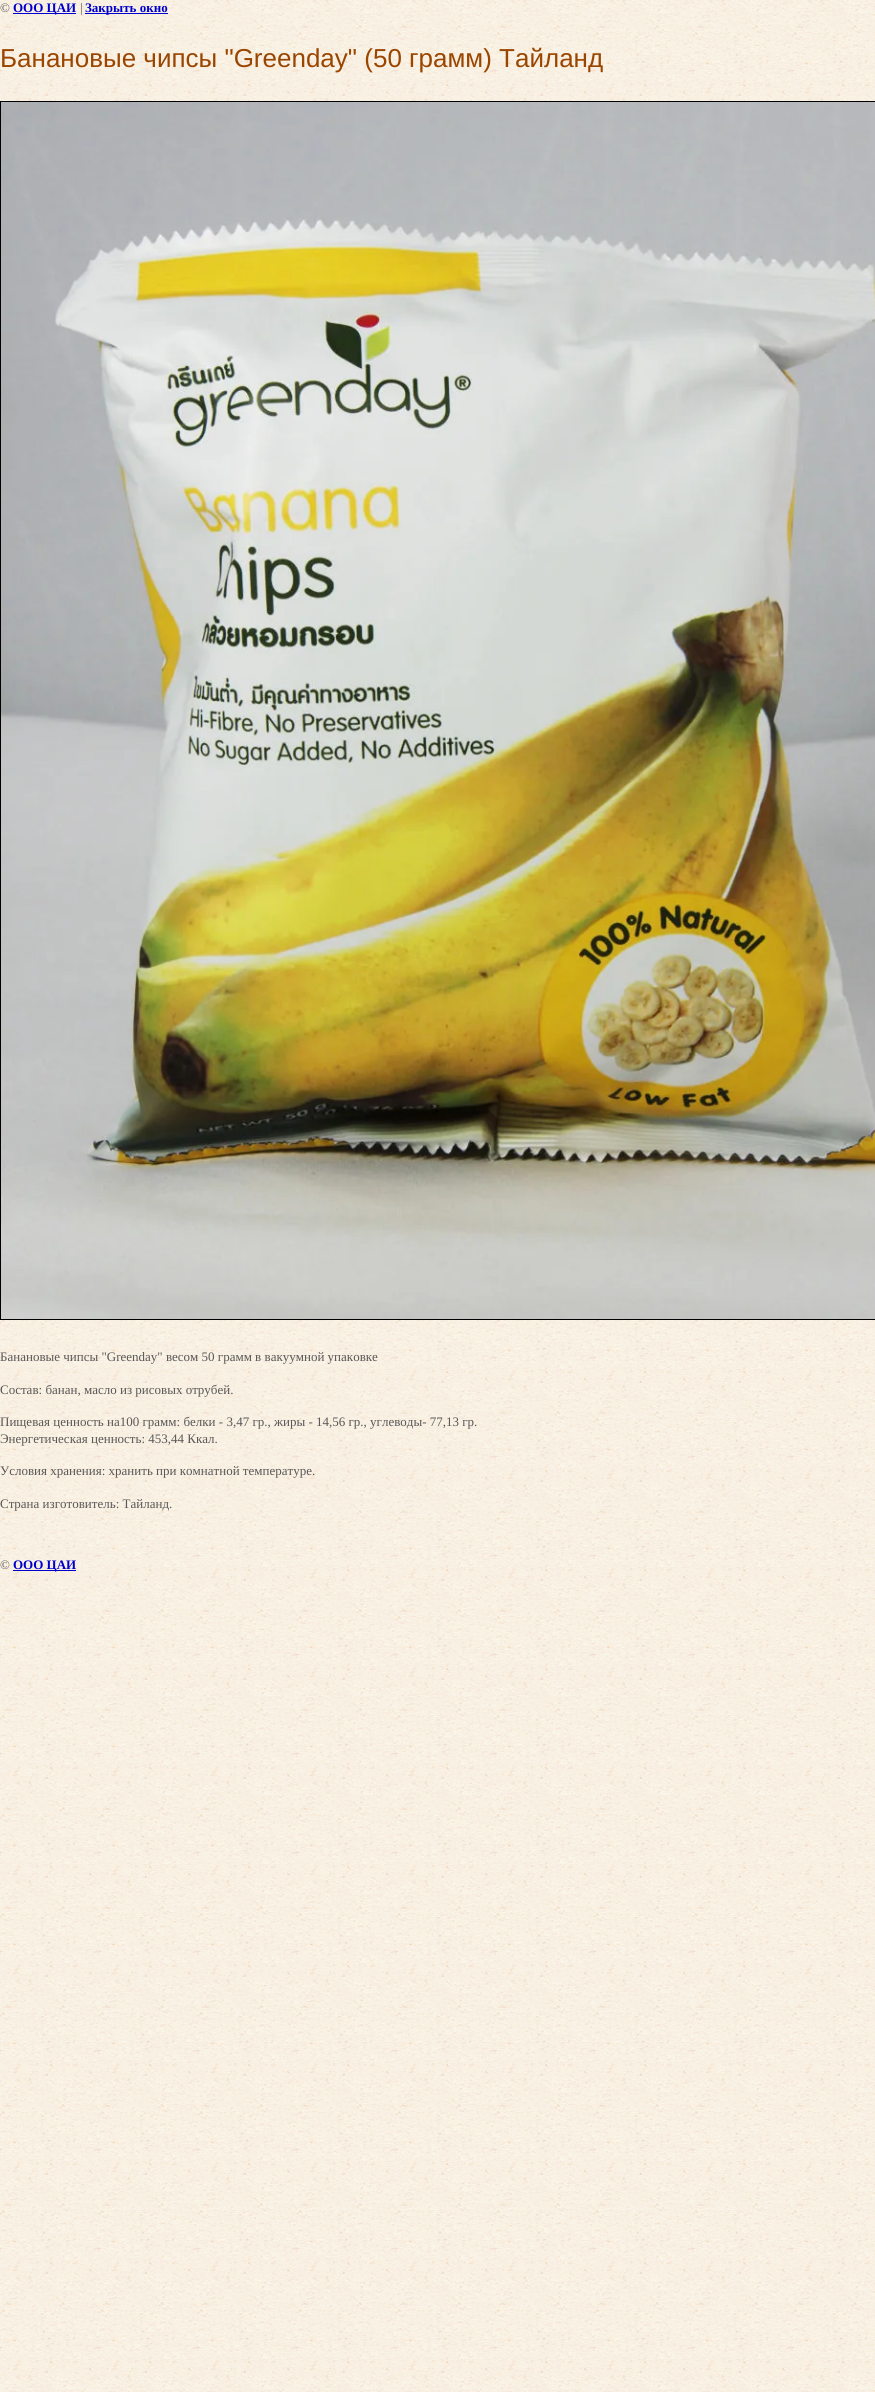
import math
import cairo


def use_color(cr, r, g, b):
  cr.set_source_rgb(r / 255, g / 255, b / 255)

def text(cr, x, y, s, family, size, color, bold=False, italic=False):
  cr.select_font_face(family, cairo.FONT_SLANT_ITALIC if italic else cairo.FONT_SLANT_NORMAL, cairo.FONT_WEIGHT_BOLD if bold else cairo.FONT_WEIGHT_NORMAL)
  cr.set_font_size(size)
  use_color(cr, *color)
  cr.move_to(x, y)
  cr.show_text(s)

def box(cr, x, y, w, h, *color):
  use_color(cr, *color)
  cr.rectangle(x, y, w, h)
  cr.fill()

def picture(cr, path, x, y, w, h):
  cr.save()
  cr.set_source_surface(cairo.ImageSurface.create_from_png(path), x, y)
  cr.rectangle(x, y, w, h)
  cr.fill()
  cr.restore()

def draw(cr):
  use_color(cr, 255, 255, 255)
  cr.paint()
  picture(cr, "img_01.png", 0, 0, 875, 2392)
  box(cr, 13, 13, 63, 1, 0, 0, 204)
  box(cr, 85, 13, 83, 1, 0, 0, 204)
  cr.rectangle(0.5, 101.5, 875, 1218)
  use_color(cr, 0, 0, 0)
  cr.set_line_width(1)
  cr.stroke()
  picture(cr, "img_02.png", 1, 102, 874, 1217)
  box(cr, 13, 1570, 63, 1, 0, 0, 204)
  text(cr, 0, 12, "©", "Liberation Serif", 13, (89, 87, 87))
  text(cr, 13, 12, "ООО ЦАИ", "Liberation Serif", 13, (0, 0, 204), bold=True)
  text(cr, 80, 12, "|", "Liberation Serif", 13, (89, 87, 87))
  text(cr, 85, 12, "Закрыть окно", "Liberation Serif", 13, (0, 0, 204), bold=True)
  text(cr, 0, 67, "Банановые чипсы \"Greenday\" (50 грамм) Тайланд", "Liberation Sans", 26, (154, 69, 0))
  text(cr, 0, 1361, "Банановые чипсы \"Greenday\" весом 50 грамм в вакуумной упаковке", "Liberation Serif", 13, (89, 87, 87))
  text(cr, 0, 1394, "Состав: банан, масло из рисовых отрубей.", "Liberation Serif", 13, (89, 87, 87))
  text(cr, 0, 1426, "Пищевая ценность на100 грамм: белки - 3,47 гр., жиры - 14,56 гр., углеводы- 77,13 гр.", "Liberation Serif", 13, (89, 87, 87))
  text(cr, 0, 1443, "Энергетическая ценность: 453,44 Ккал.", "Liberation Serif", 13, (89, 87, 87))
  text(cr, 0, 1475, "Условия хранения: хранить при комнатной температуре.", "Liberation Serif", 13, (89, 87, 87))
  text(cr, 0, 1508, "Страна изготовитель: Тайланд.", "Liberation Serif", 13, (89, 87, 87))
  text(cr, 0, 1569, "©", "Liberation Serif", 13, (89, 87, 87))
  text(cr, 13, 1569, "ООО ЦАИ", "Liberation Serif", 13, (0, 0, 204), bold=True)


surface = cairo.ImageSurface(cairo.FORMAT_RGB24, 875, 2392)
cr = cairo.Context(surface)
options = cairo.FontOptions()
options.set_hint_metrics(cairo.HINT_METRICS_OFF)
options.set_hint_style(cairo.HINT_STYLE_NONE)
cr.set_font_options(options)
cr.set_miter_limit(4)
draw(cr)
surface.write_to_png("out.png")
